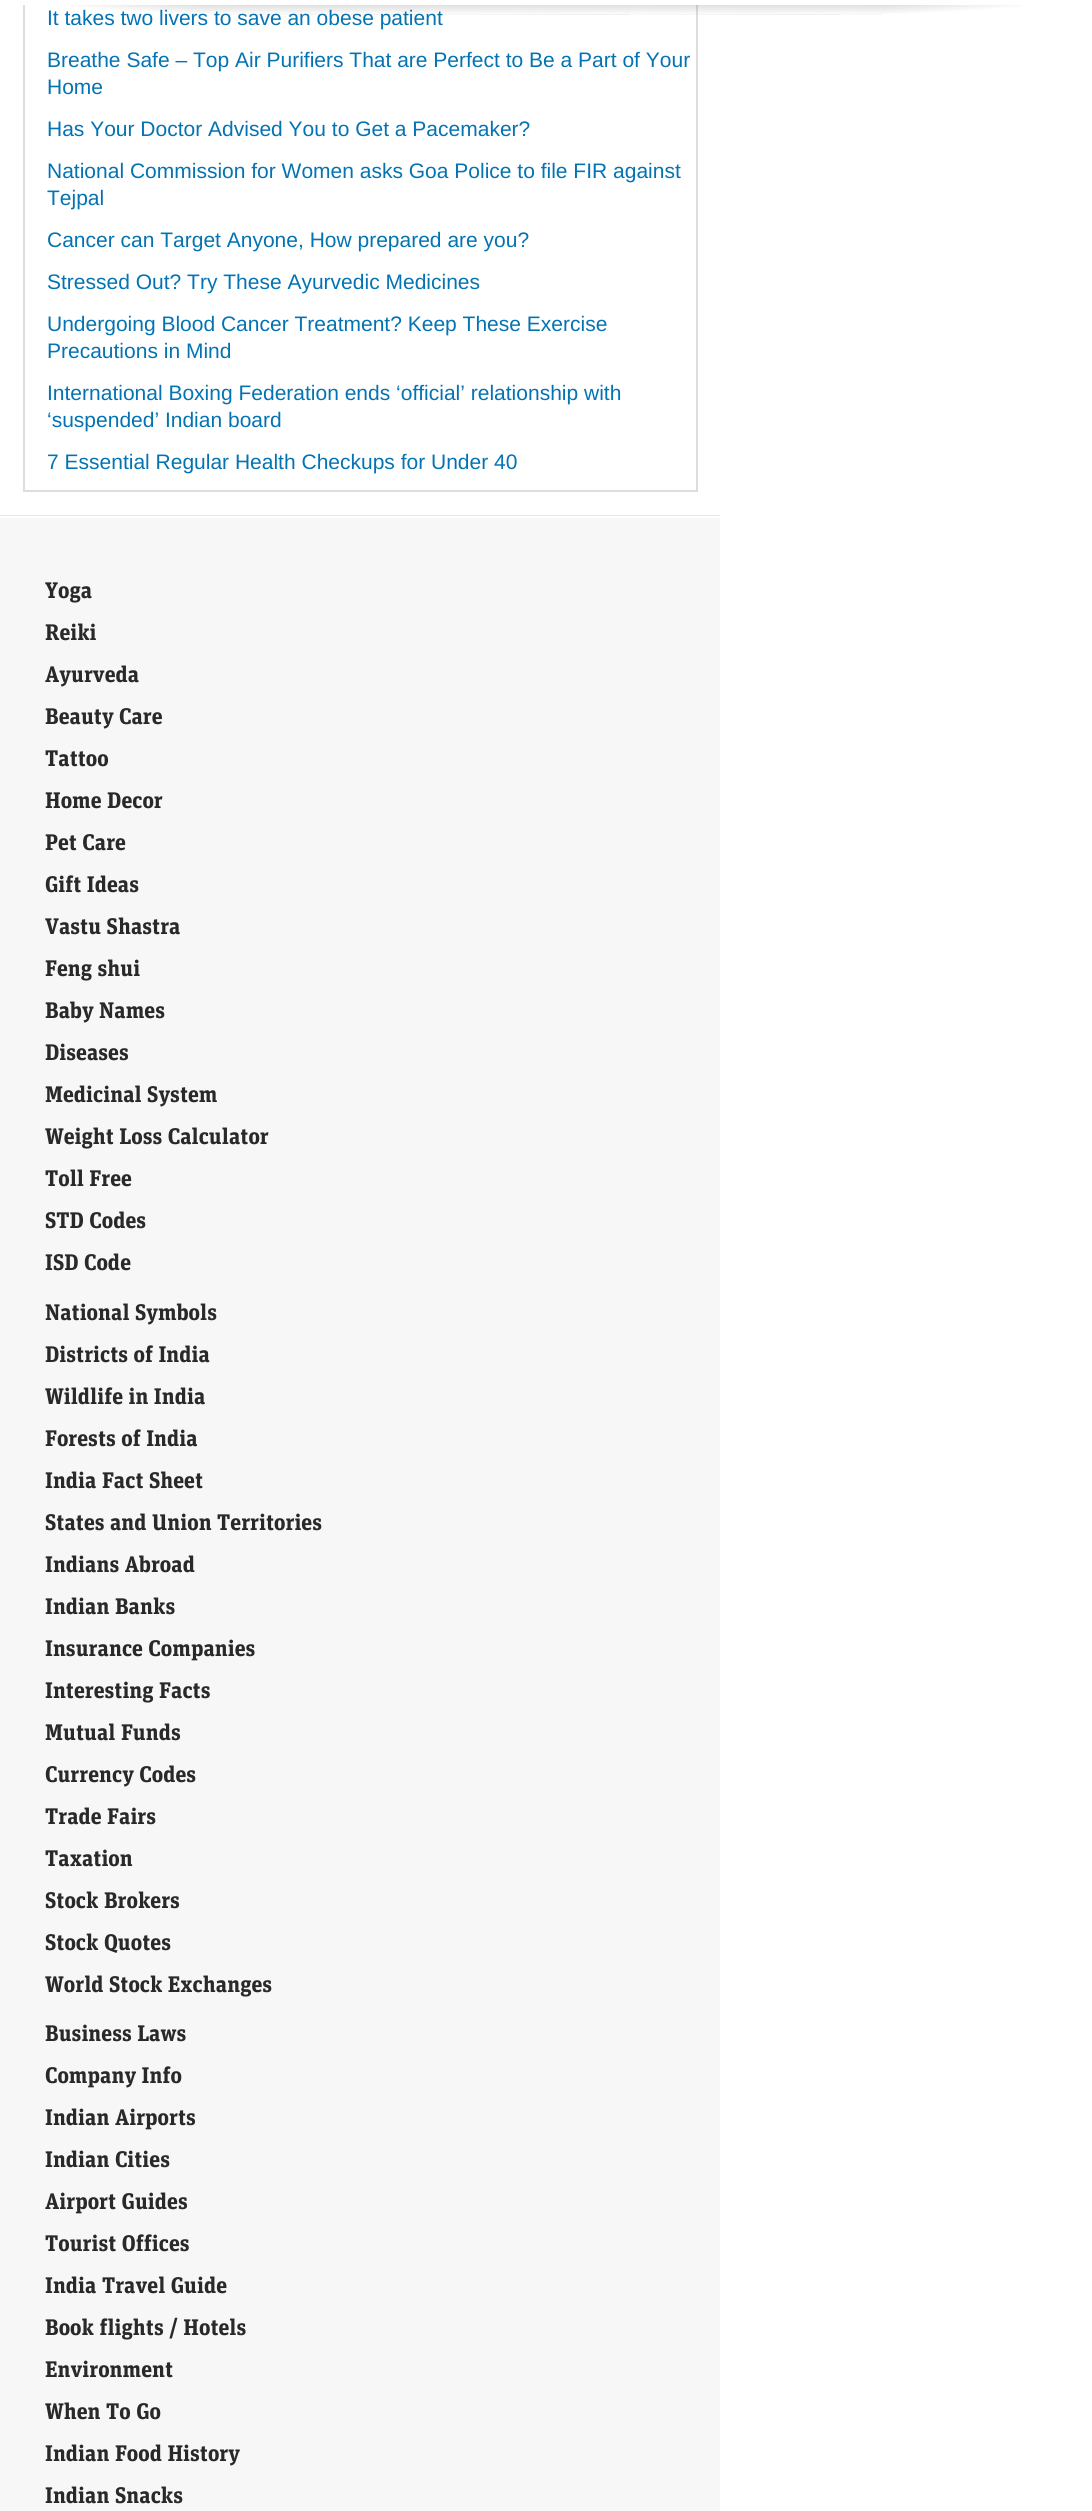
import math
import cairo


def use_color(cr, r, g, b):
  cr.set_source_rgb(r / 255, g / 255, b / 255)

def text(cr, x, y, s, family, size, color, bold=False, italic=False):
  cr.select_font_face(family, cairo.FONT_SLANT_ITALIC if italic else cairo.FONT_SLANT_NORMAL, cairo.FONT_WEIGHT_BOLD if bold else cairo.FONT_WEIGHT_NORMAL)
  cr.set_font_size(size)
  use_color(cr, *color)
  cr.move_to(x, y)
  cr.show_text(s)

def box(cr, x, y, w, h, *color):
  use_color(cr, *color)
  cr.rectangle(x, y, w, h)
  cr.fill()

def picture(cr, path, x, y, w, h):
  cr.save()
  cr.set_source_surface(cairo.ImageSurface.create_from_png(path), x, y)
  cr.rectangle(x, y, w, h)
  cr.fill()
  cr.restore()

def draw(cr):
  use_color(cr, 255, 255, 255)
  cr.paint()
  cr.rectangle(24, -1, 673, 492)
  use_color(cr, 221, 221, 221)
  cr.stroke()
  box(cr, 23, 0, 675, 5, 255, 255, 255)
  picture(cr, "img_03.png", 882, 5, 139, 9)
  box(cr, 0, 518, 720, 1993, 247, 247, 247)
  box(cr, 0, 515, 720, 1, 231, 231, 231)
  text(cr, 47, 25, "It takes two livers to save an obese patient", "Liberation Sans", 21, (3, 115, 179))
  picture(cr, "img_02.png", 210, 5, 672, 10)
  picture(cr, "img_01.png", 71, 5, 139, 9)
  text(cr, 47, 67, "Breathe Safe – Top Air Purifiers That are Perfect to Be a Part of Your", "Liberation Sans", 21, (3, 115, 179))
  text(cr, 47, 94, "Home", "Liberation Sans", 21, (3, 115, 179))
  text(cr, 47, 136, "Has Your Doctor Advised You to Get a Pacemaker?", "Liberation Sans", 21, (3, 115, 179))
  text(cr, 47, 178, "National Commission for Women asks Goa Police to file FIR against", "Liberation Sans", 21, (3, 115, 179))
  text(cr, 47, 205, "Tejpal", "Liberation Sans", 21, (3, 115, 179))
  text(cr, 47, 247, "Cancer can Target Anyone, How prepared are you?", "Liberation Sans", 21, (3, 115, 179))
  text(cr, 47, 289, "Stressed Out? Try These Ayurvedic Medicines", "Liberation Sans", 21, (3, 115, 179))
  text(cr, 47, 331, "Undergoing Blood Cancer Treatment? Keep These Exercise", "Liberation Sans", 21, (3, 115, 179))
  text(cr, 47, 358, "Precautions in Mind", "Liberation Sans", 21, (3, 115, 179))
  text(cr, 47, 400, "International Boxing Federation ends ‘official’ relationship with", "Liberation Sans", 21, (3, 115, 179))
  text(cr, 47, 427, "‘suspended’ Indian board", "Liberation Sans", 21, (3, 115, 179))
  text(cr, 47, 469, "7 Essential Regular Health Checkups for Under 40", "Liberation Sans", 21, (3, 115, 179))
  text(cr, 45, 598, "Yoga", "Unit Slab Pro", 22.5, (41, 41, 41), bold=True)
  text(cr, 45, 640, "Reiki", "Unit Slab Pro", 22.5, (41, 41, 41), bold=True)
  text(cr, 45, 682, "Ayurveda", "Unit Slab Pro", 22.5, (41, 41, 41), bold=True)
  text(cr, 45, 724, "Beauty Care", "Unit Slab Pro", 22.5, (41, 41, 41), bold=True)
  text(cr, 45, 766, "Tattoo", "Unit Slab Pro", 22.5, (41, 41, 41), bold=True)
  text(cr, 45, 808, "Home Decor", "Unit Slab Pro", 22.5, (41, 41, 41), bold=True)
  text(cr, 45, 850, "Pet Care", "Unit Slab Pro", 22.5, (41, 41, 41), bold=True)
  text(cr, 45, 892, "Gift Ideas", "Unit Slab Pro", 22.5, (41, 41, 41), bold=True)
  text(cr, 45, 934, "Vastu Shastra", "Unit Slab Pro", 22.5, (41, 41, 41), bold=True)
  text(cr, 45, 976, "Feng shui", "Unit Slab Pro", 22.5, (41, 41, 41), bold=True)
  text(cr, 45, 1018, "Baby Names", "Unit Slab Pro", 22.5, (41, 41, 41), bold=True)
  text(cr, 45, 1060, "Diseases", "Unit Slab Pro", 22.5, (41, 41, 41), bold=True)
  text(cr, 45, 1102, "Medicinal System", "Unit Slab Pro", 22.5, (41, 41, 41), bold=True)
  text(cr, 45, 1144, "Weight Loss Calculator", "Unit Slab Pro", 22.5, (41, 41, 41), bold=True)
  text(cr, 45, 1186, "Toll Free", "Unit Slab Pro", 22.5, (41, 41, 41), bold=True)
  text(cr, 45, 1228, "STD Codes", "Unit Slab Pro", 22.5, (41, 41, 41), bold=True)
  text(cr, 45, 1270, "ISD Code", "Unit Slab Pro", 22.5, (41, 41, 41), bold=True)
  text(cr, 45, 1320, "National Symbols", "Unit Slab Pro", 22.5, (41, 41, 41), bold=True)
  text(cr, 45, 1362, "Districts of India", "Unit Slab Pro", 22.5, (41, 41, 41), bold=True)
  text(cr, 45, 1404, "Wildlife in India", "Unit Slab Pro", 22.5, (41, 41, 41), bold=True)
  text(cr, 45, 1446, "Forests of India", "Unit Slab Pro", 22.5, (41, 41, 41), bold=True)
  text(cr, 45, 1488, "India Fact Sheet", "Unit Slab Pro", 22.5, (41, 41, 41), bold=True)
  text(cr, 45, 1530, "States and Union Territories", "Unit Slab Pro", 22.5, (41, 41, 41), bold=True)
  text(cr, 45, 1572, "Indians Abroad", "Unit Slab Pro", 22.5, (41, 41, 41), bold=True)
  text(cr, 45, 1614, "Indian Banks", "Unit Slab Pro", 22.5, (41, 41, 41), bold=True)
  text(cr, 45, 1656, "Insurance Companies", "Unit Slab Pro", 22.5, (41, 41, 41), bold=True)
  text(cr, 45, 1698, "Interesting Facts", "Unit Slab Pro", 22.5, (41, 41, 41), bold=True)
  text(cr, 45, 1740, "Mutual Funds", "Unit Slab Pro", 22.5, (41, 41, 41), bold=True)
  text(cr, 45, 1782, "Currency Codes", "Unit Slab Pro", 22.5, (41, 41, 41), bold=True)
  text(cr, 45, 1824, "Trade Fairs", "Unit Slab Pro", 22.5, (41, 41, 41), bold=True)
  text(cr, 45, 1866, "Taxation", "Unit Slab Pro", 22.5, (41, 41, 41), bold=True)
  text(cr, 45, 1908, "Stock Brokers", "Unit Slab Pro", 22.5, (41, 41, 41), bold=True)
  text(cr, 45, 1950, "Stock Quotes", "Unit Slab Pro", 22.5, (41, 41, 41), bold=True)
  text(cr, 45, 1992, "World Stock Exchanges", "Unit Slab Pro", 22.5, (41, 41, 41), bold=True)
  text(cr, 45, 2041, "Business Laws", "Unit Slab Pro", 22.5, (41, 41, 41), bold=True)
  text(cr, 45, 2083, "Company Info", "Unit Slab Pro", 22.5, (41, 41, 41), bold=True)
  text(cr, 45, 2125, "Indian Airports", "Unit Slab Pro", 22.5, (41, 41, 41), bold=True)
  text(cr, 45, 2167, "Indian Cities", "Unit Slab Pro", 22.5, (41, 41, 41), bold=True)
  text(cr, 45, 2209, "Airport Guides", "Unit Slab Pro", 22.5, (41, 41, 41), bold=True)
  text(cr, 45, 2251, "Tourist Offices", "Unit Slab Pro", 22.5, (41, 41, 41), bold=True)
  text(cr, 45, 2293, "India Travel Guide", "Unit Slab Pro", 22.5, (41, 41, 41), bold=True)
  text(cr, 45, 2335, "Book flights / Hotels", "Unit Slab Pro", 22.5, (41, 41, 41), bold=True)
  text(cr, 45, 2377, "Environment", "Unit Slab Pro", 22.5, (41, 41, 41), bold=True)
  text(cr, 45, 2419, "When To Go", "Unit Slab Pro", 22.5, (41, 41, 41), bold=True)
  text(cr, 45, 2461, "Indian Food History", "Unit Slab Pro", 22.5, (41, 41, 41), bold=True)
  text(cr, 45, 2503, "Indian Snacks", "Unit Slab Pro", 22.5, (41, 41, 41), bold=True)


surface = cairo.ImageSurface(cairo.FORMAT_RGB24, 1092, 2511)
cr = cairo.Context(surface)
options = cairo.FontOptions()
options.set_hint_metrics(cairo.HINT_METRICS_OFF)
options.set_hint_style(cairo.HINT_STYLE_NONE)
cr.set_font_options(options)
cr.set_miter_limit(4)
draw(cr)
surface.write_to_png("out.png")
